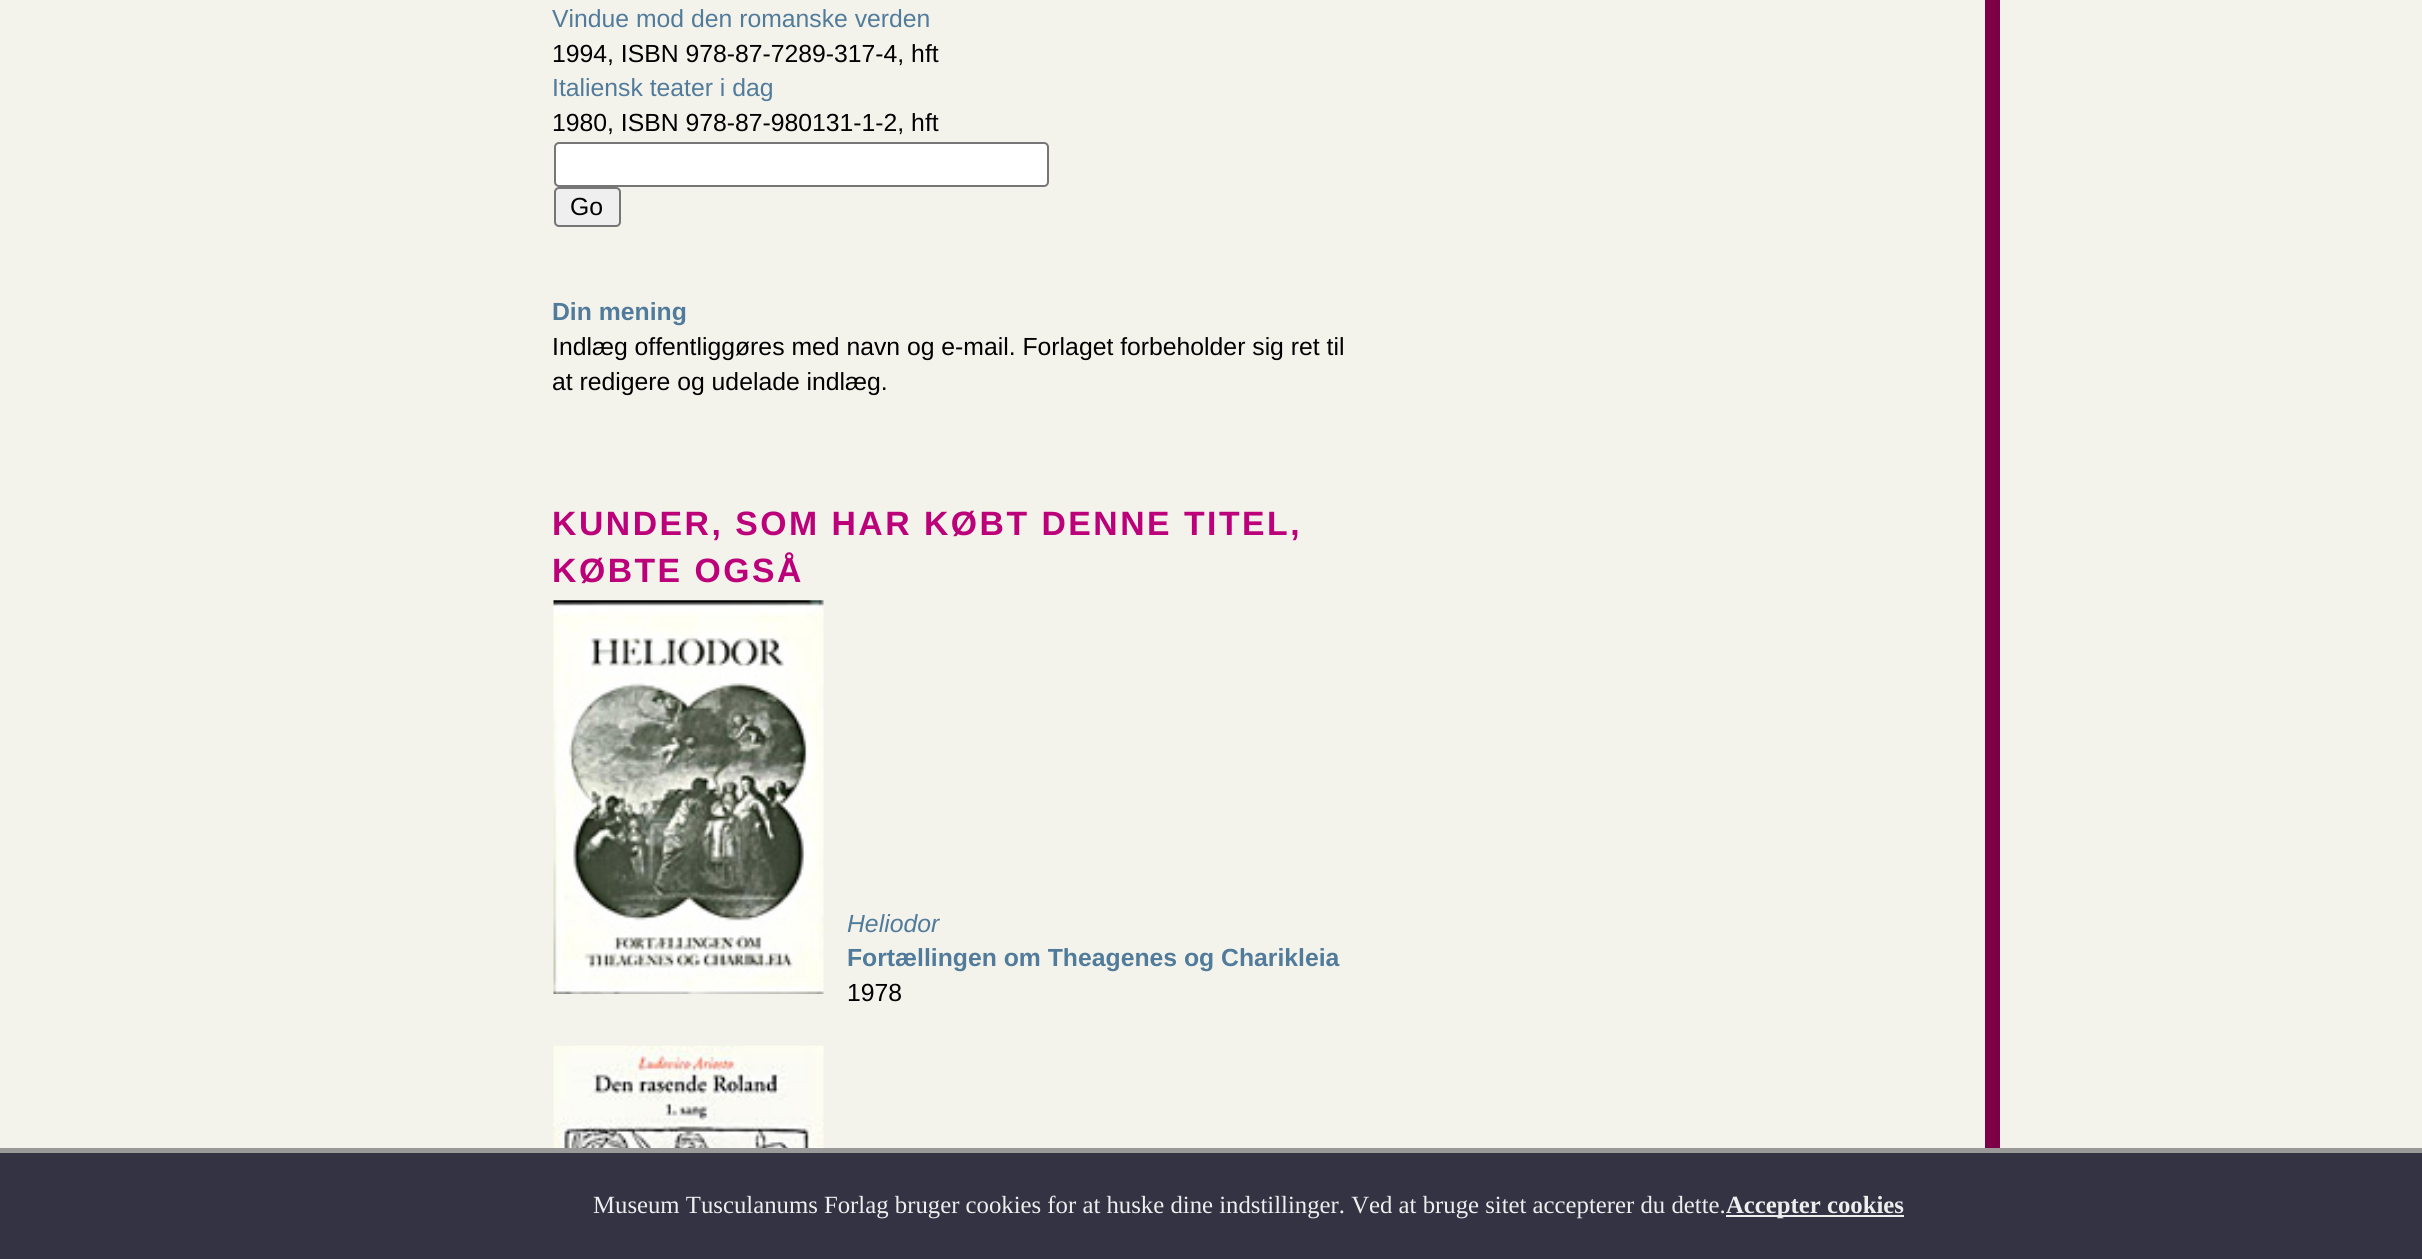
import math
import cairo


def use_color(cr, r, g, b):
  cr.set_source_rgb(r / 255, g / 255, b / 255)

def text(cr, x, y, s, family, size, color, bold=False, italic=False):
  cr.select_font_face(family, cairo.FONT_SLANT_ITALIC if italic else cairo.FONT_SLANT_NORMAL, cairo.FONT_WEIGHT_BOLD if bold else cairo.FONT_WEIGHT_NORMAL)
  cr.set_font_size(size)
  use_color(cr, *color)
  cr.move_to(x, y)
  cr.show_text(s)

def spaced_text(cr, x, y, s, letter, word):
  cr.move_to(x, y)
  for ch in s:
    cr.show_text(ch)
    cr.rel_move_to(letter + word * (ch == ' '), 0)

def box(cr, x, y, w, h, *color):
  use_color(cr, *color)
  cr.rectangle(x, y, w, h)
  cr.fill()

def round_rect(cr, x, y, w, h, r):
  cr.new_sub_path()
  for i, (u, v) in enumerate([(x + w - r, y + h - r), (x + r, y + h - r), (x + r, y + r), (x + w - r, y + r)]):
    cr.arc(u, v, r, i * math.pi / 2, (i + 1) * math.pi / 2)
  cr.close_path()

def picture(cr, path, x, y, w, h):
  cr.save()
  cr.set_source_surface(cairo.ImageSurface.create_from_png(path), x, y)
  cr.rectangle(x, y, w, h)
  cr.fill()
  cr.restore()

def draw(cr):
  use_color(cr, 244, 243, 235)
  cr.paint()
  use_color(cr, 255, 255, 255)
  round_rect(cr, 555, 143, 493, 43, 4)
  cr.fill_preserve()
  use_color(cr, 118, 118, 118)
  cr.stroke()
  use_color(cr, 239, 239, 239)
  round_rect(cr, 555, 188, 65, 38, 4)
  cr.fill_preserve()
  use_color(cr, 118, 118, 118)
  cr.stroke()
  picture(cr, "img_01.png", 553, 600, 271, 394)
  picture(cr, "img_02.png", 553, 1045, 271, 103)
  box(cr, 0, 1153, 2422, 106, 51, 51, 68)
  box(cr, 0, 1148, 2422, 5, 153, 153, 153)
  box(cr, 1726, 1215, 178, 2, 238, 238, 238)
  box(cr, 1985, 0, 15, 1148, 125, 0, 71)
  text(cr, 552, 27, "Vindue mod den romanske verden", "Liberation Sans", 24.75, (81, 123, 155))
  text(cr, 552, 62, "1994, ISBN 978-87-7289-317-4, hft", "Liberation Sans", 24.75, (0, 0, 0))
  text(cr, 552, 96, "Italiensk teater i dag", "Liberation Sans", 24.75, (81, 123, 155))
  text(cr, 552, 131, "1980, ISBN 978-87-980131-1-2, hft", "Liberation Sans", 24.75, (0, 0, 0))
  text(cr, 570, 215, "Go", "Liberation Sans", 24.75, (0, 0, 0))
  text(cr, 552, 320, "Din mening", "Liberation Sans", 24.75, (81, 123, 155), bold=True)
  text(cr, 552, 355, "Indlæg offentliggøres med navn og e-mail. Forlaget forbeholder sig ret til", "Liberation Sans", 24.75, (0, 0, 0))
  text(cr, 552, 390, "at redigere og udelade indlæg.", "Liberation Sans", 24.75, (0, 0, 0))
  cr.select_font_face("Liberation Sans", cairo.FONT_SLANT_NORMAL, cairo.FONT_WEIGHT_BOLD)
  cr.set_font_size(33.75)
  use_color(cr, 188, 0, 121)
  spaced_text(cr, 552, 535, "KUNDER, SOM HAR KØBT DENNE TITEL,", 2.5, 0)
  spaced_text(cr, 552, 582, "KØBTE OGSÅ", 2.5, 0)
  text(cr, 847, 932, "Heliodor", "Liberation Sans", 24.75, (81, 123, 155), italic=True)
  text(cr, 847, 966, "Fortællingen om Theagenes og Charikleia", "Liberation Sans", 24.75, (81, 123, 155), bold=True)
  text(cr, 847, 1001, "1978", "Liberation Sans", 24.75, (0, 0, 0))
  text(cr, 593, 1213, "Museum Tusculanums Forlag bruger cookies for at huske dine indstillinger. Ved at bruge sitet accepterer du dette.", "Liberation Serif", 24.75, (238, 238, 238))
  text(cr, 1726, 1213, "Accepter cookies", "Liberation Serif", 24.75, (238, 238, 238), bold=True)


surface = cairo.ImageSurface(cairo.FORMAT_RGB24, 2422, 1259)
cr = cairo.Context(surface)
options = cairo.FontOptions()
options.set_hint_metrics(cairo.HINT_METRICS_OFF)
options.set_hint_style(cairo.HINT_STYLE_NONE)
cr.set_font_options(options)
cr.set_miter_limit(4)
draw(cr)
surface.write_to_png("out.png")
